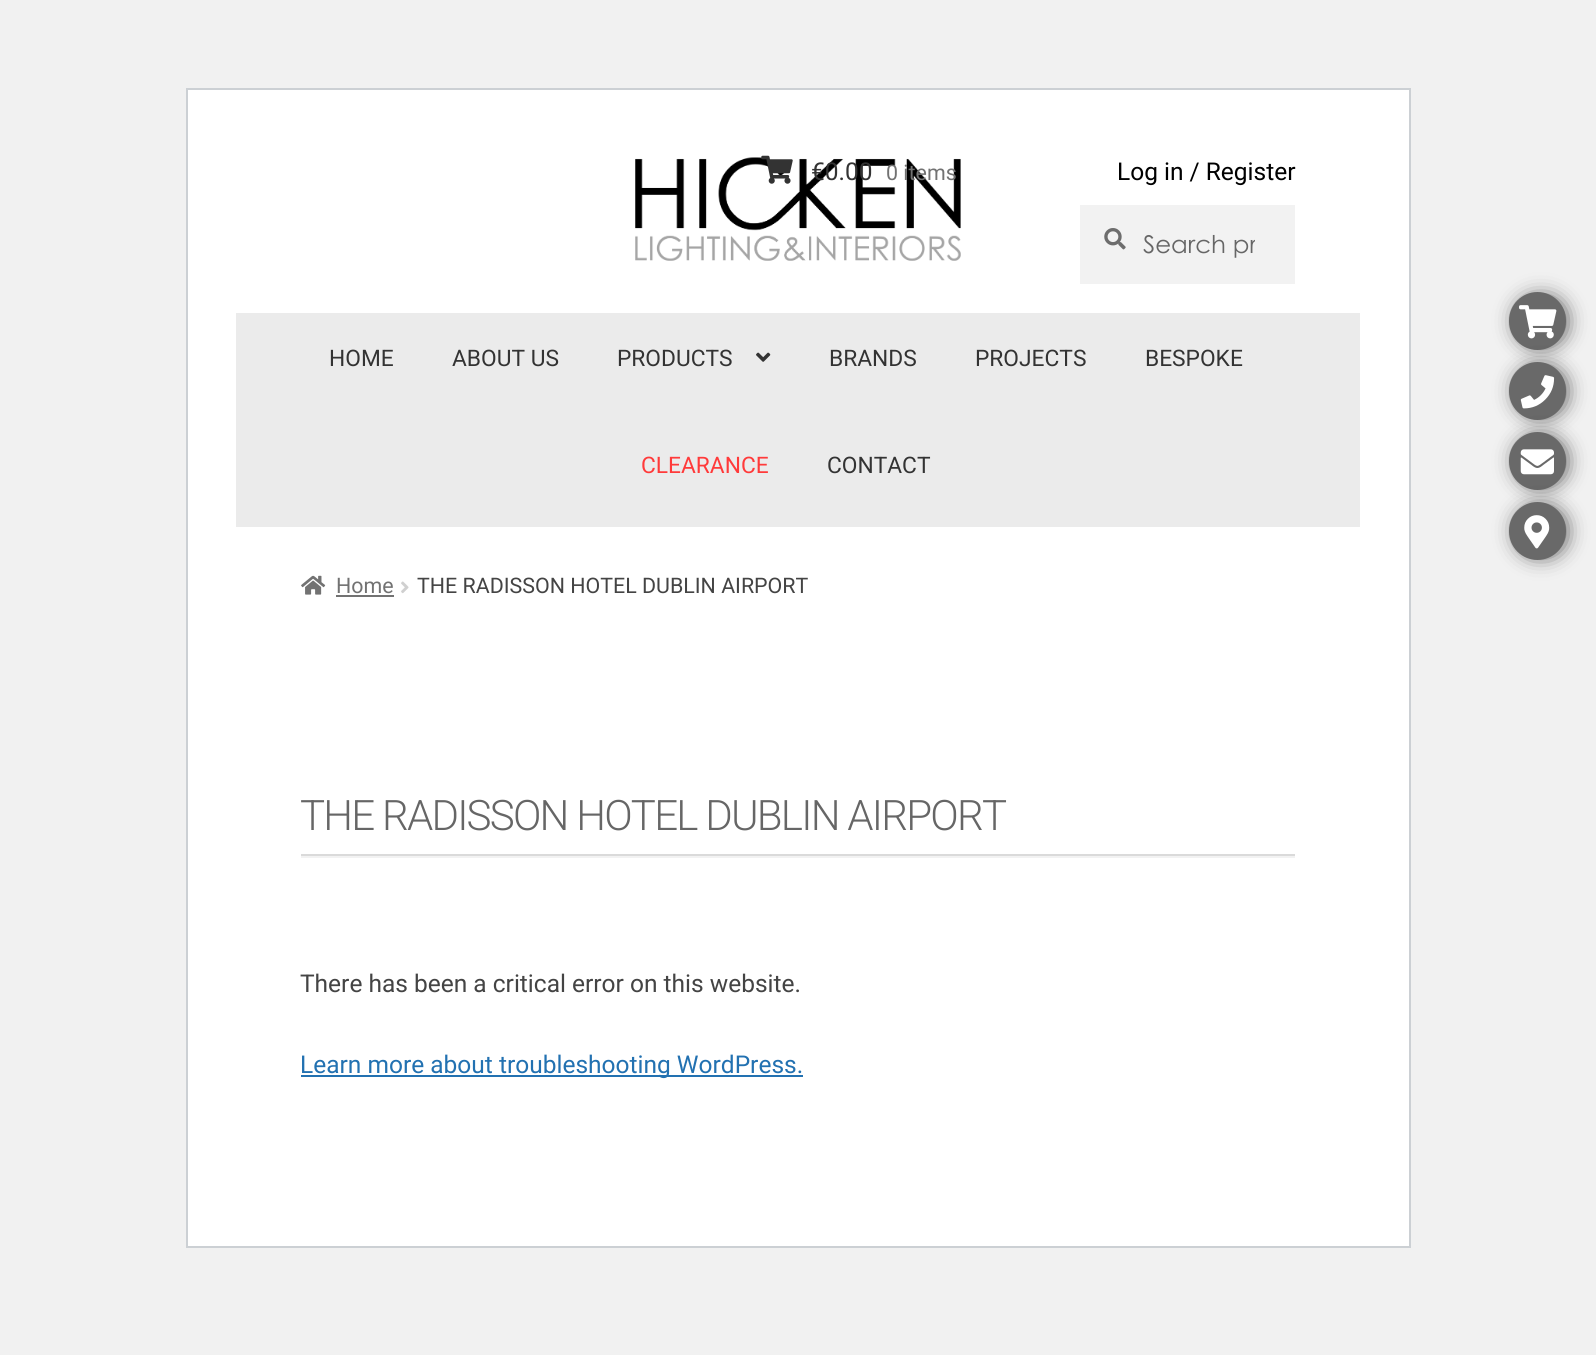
import math
import cairo


def use_color(cr, r, g, b):
  cr.set_source_rgb(r / 255, g / 255, b / 255)

def text(cr, x, y, s, family, size, color, bold=False, italic=False):
  cr.select_font_face(family, cairo.FONT_SLANT_ITALIC if italic else cairo.FONT_SLANT_NORMAL, cairo.FONT_WEIGHT_BOLD if bold else cairo.FONT_WEIGHT_NORMAL)
  cr.set_font_size(size)
  use_color(cr, *color)
  cr.move_to(x, y)
  cr.show_text(s)

def spaced_text(cr, x, y, s, letter, word):
  cr.move_to(x, y)
  for ch in s:
    cr.show_text(ch)
    cr.rel_move_to(letter + word * (ch == ' '), 0)

def box(cr, x, y, w, h, *color):
  use_color(cr, *color)
  cr.rectangle(x, y, w, h)
  cr.fill()

def round_rect(cr, x, y, w, h, r):
  cr.new_sub_path()
  for i, (u, v) in enumerate([(x + w - r, y + h - r), (x + r, y + h - r), (x + r, y + r), (x + w - r, y + r)]):
    cr.arc(u, v, r, i * math.pi / 2, (i + 1) * math.pi / 2)
  cr.close_path()

def shadow(cr, x, y, w, h, r, blur, alpha):
  cr.push_group_with_content(cairo.CONTENT_ALPHA)
  cr.set_operator(cairo.OPERATOR_SOURCE)
  for i in range(15, -16, -2):
    e = blur * i / 6
    if min(w, h) + 2 * e > 0:
      cr.set_source_rgba(0, 0, 0, alpha * math.erfc((i - 1) / 8.5) / 2)
      round_rect(cr, x - e, y - e, w + 2 * e, h + 2 * e, max(0, min(r + e + blur * .6, min(w, h) / 2 + e)))
      cr.fill()
  cr.mask(cr.pop_group())

def picture(cr, path, x, y, w, h):
  cr.save()
  cr.set_source_surface(cairo.ImageSurface.create_from_png(path), x, y)
  cr.rectangle(x, y, w, h)
  cr.fill()
  cr.restore()

def draw(cr):
  use_color(cr, 241, 241, 241)
  cr.paint()
  use_color(cr, 255, 255, 255)
  cr.rectangle(187, 89, 1223, 1158)
  cr.fill_preserve()
  use_color(cr, 204, 208, 212)
  cr.stroke()
  box(cr, 236, 313, 1124, 214, 235, 235, 235)
  picture(cr, "img_03.png", 635, 157, 326, 104)
  picture(cr, "img_01.png", 761, 155, 32, 29)
  picture(cr, "img_02.png", 756, 352, 15, 10)
  box(cr, 1080, 205, 215, 79, 242, 242, 242)
  picture(cr, "img_04.png", 1104, 228, 22, 22)
  use_color(cr, 0, 0, 0)
  shadow(cr, 1517, 298, 48, 47, 23.5, 10.5, 0.75)
  use_color(cr, 105, 105, 105)
  round_rect(cr, 1509, 292, 57, 58, 28.5)
  cr.fill()
  use_color(cr, 0, 0, 0)
  shadow(cr, 1517, 368, 48, 47, 23.5, 10.5, 0.75)
  picture(cr, "img_05.png", 1519, 305, 38, 34)
  use_color(cr, 105, 105, 105)
  round_rect(cr, 1509, 362, 57, 58, 28.5)
  cr.fill()
  use_color(cr, 0, 0, 0)
  shadow(cr, 1517, 438, 48, 47, 23.5, 10.5, 0.75)
  picture(cr, "img_06.png", 1520, 375, 35, 34)
  use_color(cr, 105, 105, 105)
  round_rect(cr, 1509, 432, 57, 58, 28.5)
  cr.fill()
  picture(cr, "img_07.png", 1520, 449, 34, 26)
  use_color(cr, 0, 0, 0)
  shadow(cr, 1517, 508, 48, 47, 23.5, 10.5, 0.75)
  use_color(cr, 105, 105, 105)
  round_rect(cr, 1509, 502, 57, 58, 28.5)
  cr.fill()
  picture(cr, "img_08.png", 1524, 515, 26, 34)
  picture(cr, "img_09.png", 301, 575, 25, 20)
  box(cr, 336, 595, 58, 2, 114, 114, 114)
  picture(cr, "img_10.png", 401, 581, 8, 13)
  box(cr, 301, 856, 994, 2, 242, 242, 242)
  box(cr, 301, 854, 994, 2, 218, 218, 218)
  box(cr, 301, 1075, 502, 2, 34, 113, 177)
  text(cr, 811, 180, "€0.00", "Roboto", 24.5, (51, 51, 51))
  text(cr, 886, 180, "0 items", "Roboto", 21.4, (114, 114, 114))
  text(cr, 329, 366, "HOME", "Roboto", 22.75, (51, 51, 51))
  text(cr, 452, 366, "ABOUT US", "Roboto", 22.75, (51, 51, 51))
  text(cr, 617, 366, "PRODUCTS", "Roboto", 22.75, (51, 51, 51))
  text(cr, 829, 366, "BRANDS", "Roboto", 22.75, (51, 51, 51))
  text(cr, 975, 366, "PROJECTS", "Roboto", 22.75, (51, 51, 51))
  text(cr, 1145, 366, "BESPOKE", "Roboto", 22.75, (51, 51, 51))
  text(cr, 641, 473, "CLEARANCE", "Roboto", 22.75, (255, 58, 58))
  text(cr, 827, 473, "CONTACT", "Roboto", 22.75, (51, 51, 51))
  text(cr, 1117, 180, "Log in / Register", "Roboto", 24.5, (0, 0, 0))
  cr.save()
  cr.rectangle(1143, 229, 112, 30)
  cr.clip()
  text(cr, 1143, 253, "Search pr", "Century Gothic", 24.5, (102, 102, 102))
  cr.restore()
  text(cr, 336, 593, "Home", "Roboto", 21.4, (114, 114, 114))
  text(cr, 417, 593, "THE RADISSON HOTEL DUBLIN AIRPORT", "Roboto", 21.4, (68, 68, 68))
  cr.select_font_face("Roboto Light")
  cr.set_font_size(42)
  use_color(cr, 102, 102, 102)
  spaced_text(cr, 300, 830, "THE RADISSON HOTEL DUBLIN AIRPORT", -1.75, 0)
  text(cr, 300, 992, "There has been a critical error on this website.", "Roboto", 24.5, (68, 68, 68))
  text(cr, 300, 1073, "Learn more about troubleshooting WordPress.", "Roboto", 24.5, (34, 113, 177))


surface = cairo.ImageSurface(cairo.FORMAT_RGB24, 1596, 1355)
cr = cairo.Context(surface)
options = cairo.FontOptions()
options.set_hint_metrics(cairo.HINT_METRICS_OFF)
options.set_hint_style(cairo.HINT_STYLE_NONE)
cr.set_font_options(options)
cr.set_miter_limit(4)
draw(cr)
surface.write_to_png("out.png")
